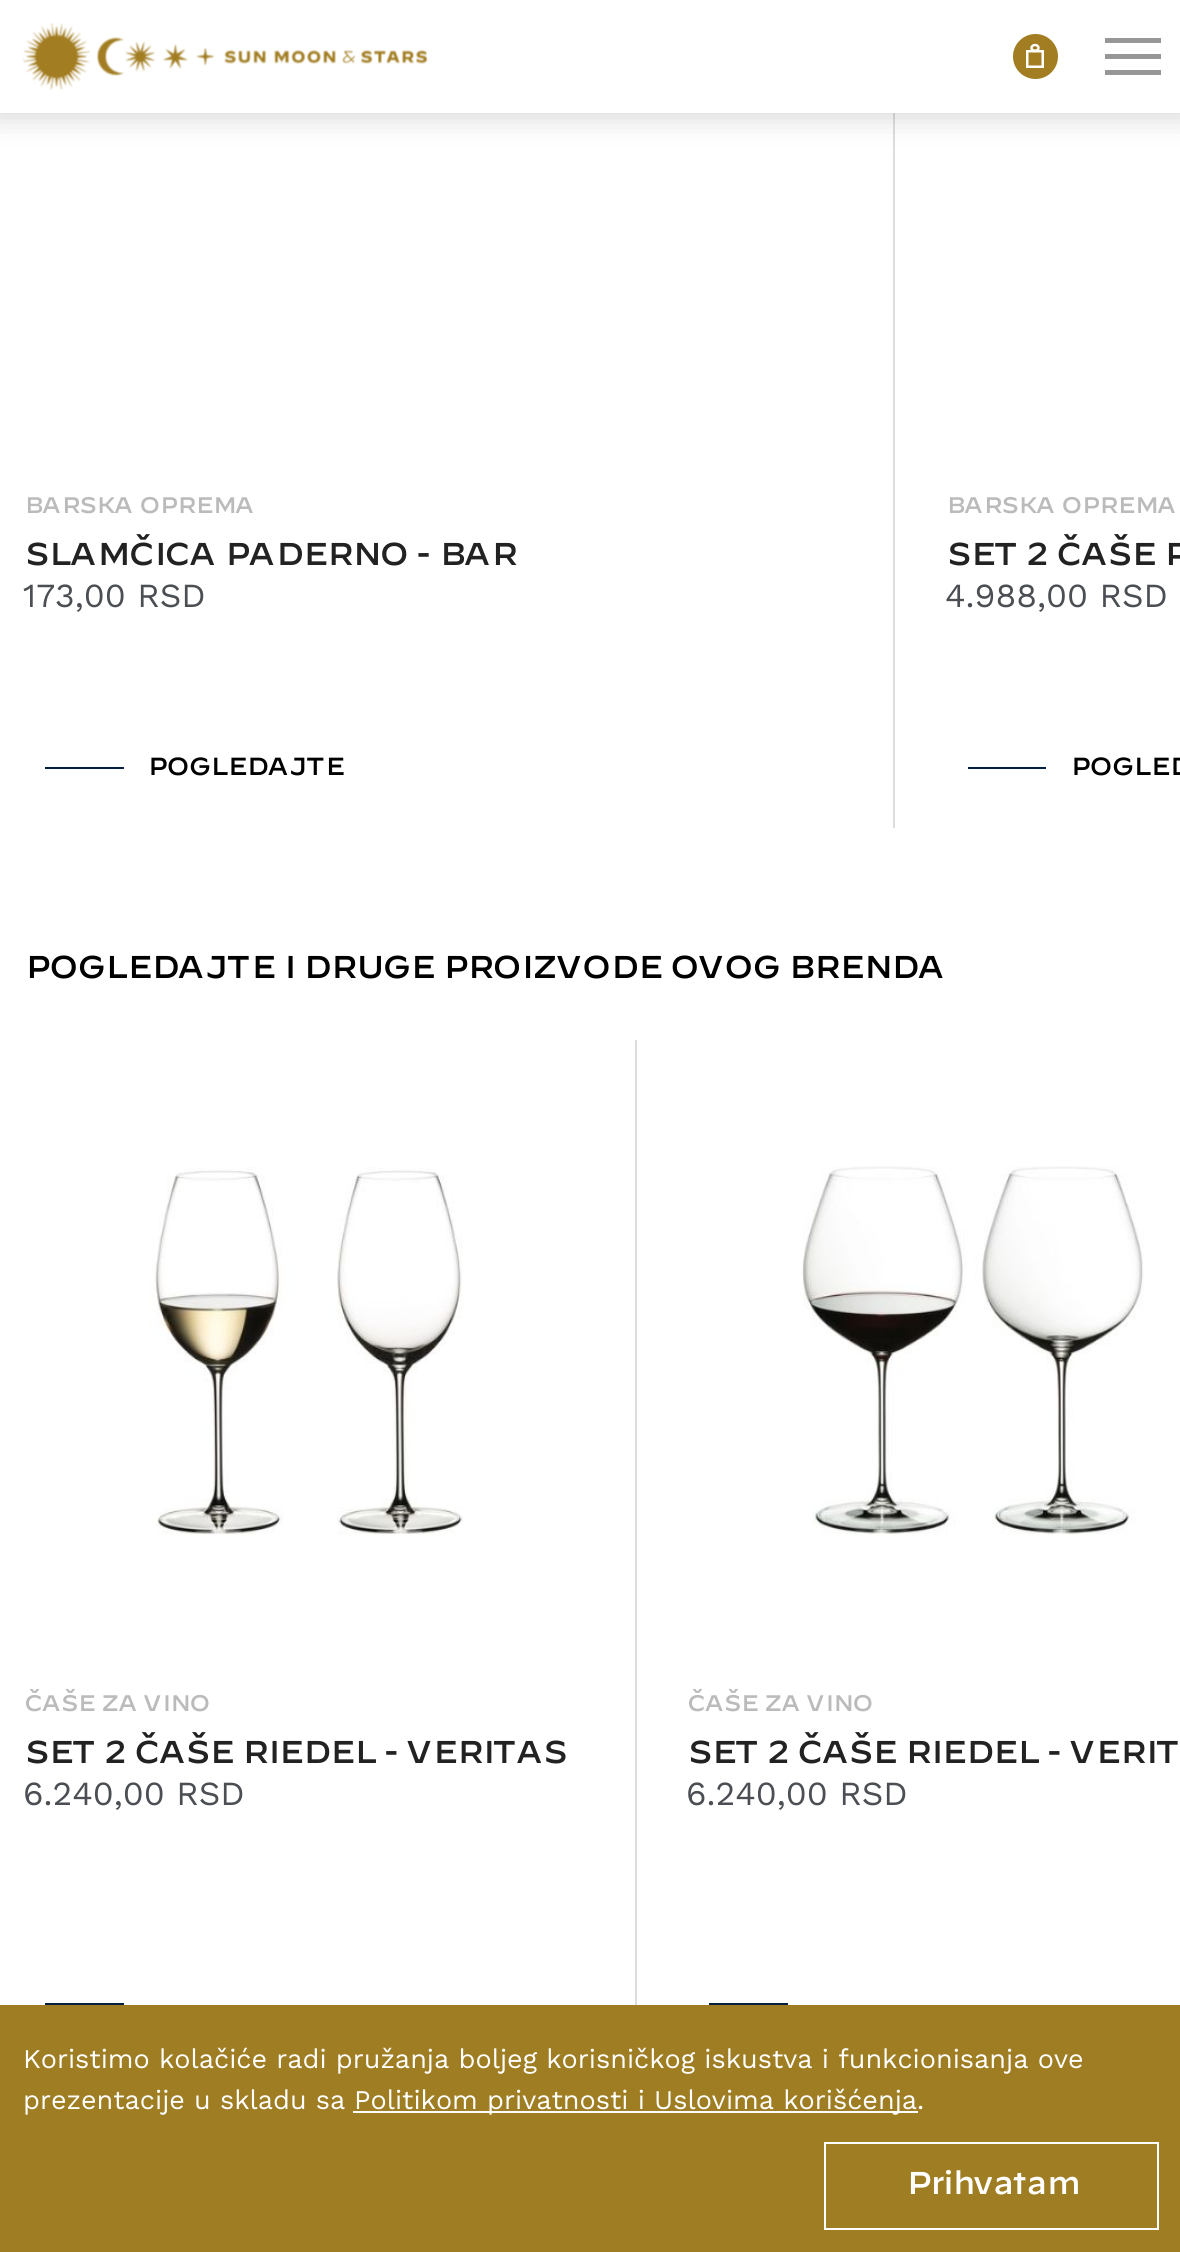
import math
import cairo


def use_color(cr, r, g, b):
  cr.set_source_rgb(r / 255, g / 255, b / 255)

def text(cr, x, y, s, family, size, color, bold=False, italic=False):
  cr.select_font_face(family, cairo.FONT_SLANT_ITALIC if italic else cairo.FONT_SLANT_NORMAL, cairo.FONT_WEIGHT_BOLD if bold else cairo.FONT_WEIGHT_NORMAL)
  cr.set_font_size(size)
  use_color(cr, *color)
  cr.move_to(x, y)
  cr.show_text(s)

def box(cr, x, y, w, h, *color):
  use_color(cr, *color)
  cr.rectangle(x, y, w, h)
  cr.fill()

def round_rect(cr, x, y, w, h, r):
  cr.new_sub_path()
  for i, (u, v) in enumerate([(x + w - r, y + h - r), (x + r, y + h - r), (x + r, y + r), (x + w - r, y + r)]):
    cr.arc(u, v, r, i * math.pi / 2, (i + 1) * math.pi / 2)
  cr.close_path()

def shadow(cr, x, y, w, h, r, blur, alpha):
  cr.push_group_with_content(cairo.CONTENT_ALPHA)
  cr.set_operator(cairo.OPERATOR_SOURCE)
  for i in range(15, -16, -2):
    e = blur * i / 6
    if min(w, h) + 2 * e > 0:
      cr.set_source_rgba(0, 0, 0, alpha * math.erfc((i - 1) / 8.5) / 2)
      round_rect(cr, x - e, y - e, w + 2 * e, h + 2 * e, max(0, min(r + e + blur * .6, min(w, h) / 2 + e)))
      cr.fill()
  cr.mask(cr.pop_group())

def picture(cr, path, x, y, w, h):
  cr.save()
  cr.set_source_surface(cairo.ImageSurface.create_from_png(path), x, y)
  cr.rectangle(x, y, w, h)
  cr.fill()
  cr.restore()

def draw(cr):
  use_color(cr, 255, 255, 255)
  cr.paint()
  box(cr, 893, 113, 2, 715, 221, 221, 221)
  use_color(cr, 88, 88, 88)
  shadow(cr, -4, -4, 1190, 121, 0, 14.5, 0.25)
  box(cr, 0, 0, 1180, 113, 255, 255, 255)
  picture(cr, "img_01.png", 22, 23, 406, 67)
  use_color(cr, 162, 125, 34)
  cr.arc(1035.5, 56.5, 22.5, 0, 2 * math.pi)
  cr.fill()
  cr.rectangle(1027.25, 51.25, 15.5, 15.5)
  use_color(cr, 255, 255, 255)
  cr.set_line_width(2.5)
  cr.stroke()
  cr.new_path()
  cr.move_to(1038.5, 48)
  cr.curve_to(1038.5, 51.5, 1031.5, 51.5, 1031.5, 48)
  cr.curve_to(1031.5, 44, 1038.5, 44, 1038.5, 48)
  cr.close_path()
  cr.set_line_width(2.4)
  cr.stroke()
  box(cr, 1105, 38, 56, 5, 151, 151, 151)
  box(cr, 1105, 54, 56, 5, 151, 151, 151)
  box(cr, 1105, 70, 56, 5, 151, 151, 151)
  box(cr, 45, 767, 79, 2, 4, 30, 66)
  box(cr, 968, 767, 78, 2, 4, 30, 66)
  box(cr, 635, 1040, 2, 965, 221, 221, 221)
  picture(cr, "img_02.png", 149, 1167, 314, 368)
  box(cr, 45, 2003, 79, 2, 4, 30, 66)
  picture(cr, "img_03.png", 801, 1166, 343, 369)
  box(cr, 709, 2003, 79, 2, 4, 30, 66)
  box(cr, 0, 2005, 1180, 247, 159, 125, 35)
  box(cr, 353, 2111, 565, 2, 255, 255, 255)
  cr.rectangle(825, 2143, 333, 86)
  cr.set_line_width(2)
  cr.stroke()
  text(cr, 23, 513, "BARSKA OPREMA", "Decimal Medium", 22.5, (187, 187, 187))
  text(cr, 23, 565, "SLAMČICA PADERNO - BAR", "Decimal Medium", 31.5, (34, 34, 34))
  text(cr, 23, 607, "173,00 RSD", "Work Sans", 33.75, (75, 79, 84))
  text(cr, 146, 775, "POGLEDAJTE", "Decimal Medium", 24.75, (0, 0, 0))
  text(cr, 945, 513, "BARSKA OPREMA", "Decimal Medium", 22.5, (187, 187, 187))
  text(cr, 945, 565, "SET 2 ČAŠE P", "Decimal Medium", 31.5, (34, 34, 34))
  text(cr, 945, 607, "4.988,00 RSD", "Work Sans", 33.75, (75, 79, 84))
  text(cr, 1069, 775, "POGLED", "Decimal Medium", 24.75, (0, 0, 0))
  text(cr, 23, 978, "POGLEDAJTE I DRUGE PROIZVODE OVOG BRENDA", "Decimal Medium", 31.5, (0, 0, 0))
  text(cr, 23, 1711, "ČAŠE ZA VINO", "Decimal Medium", 22.5, (187, 187, 187))
  text(cr, 23, 1763, "SET 2 ČAŠE RIEDEL - VERITAS", "Decimal Medium", 31.5, (34, 34, 34))
  text(cr, 23, 1805, "6.240,00 RSD", "Work Sans", 33.75, (75, 79, 84))
  text(cr, 686, 1711, "ČAŠE ZA VINO", "Decimal Medium", 22.5, (187, 187, 187))
  text(cr, 686, 1763, "SET 2 ČAŠE RIEDEL - VERIT", "Decimal Medium", 31.5, (34, 34, 34))
  text(cr, 686, 1805, "6.240,00 RSD", "Work Sans", 33.75, (75, 79, 84))
  text(cr, 23, 2068, "Koristimo kolačiće radi pružanja boljeg korisničkog iskustva i funkcionisanja ove", "Work Sans", 27, (255, 255, 255))
  text(cr, 23, 2109, "prezentacije u skladu sa", "Work Sans", 27, (255, 255, 255))
  text(cr, 354, 2109, "Politikom privatnosti i Uslovima korišćenja.", "Work Sans", 27, (255, 255, 255))
  text(cr, 904, 2194, "Prihvatam", "Decimal Medium", 31.5, (255, 255, 255))


surface = cairo.ImageSurface(cairo.FORMAT_RGB24, 1180, 2252)
cr = cairo.Context(surface)
options = cairo.FontOptions()
options.set_hint_metrics(cairo.HINT_METRICS_OFF)
options.set_hint_style(cairo.HINT_STYLE_NONE)
cr.set_font_options(options)
cr.set_miter_limit(4)
draw(cr)
surface.write_to_png("out.png")
